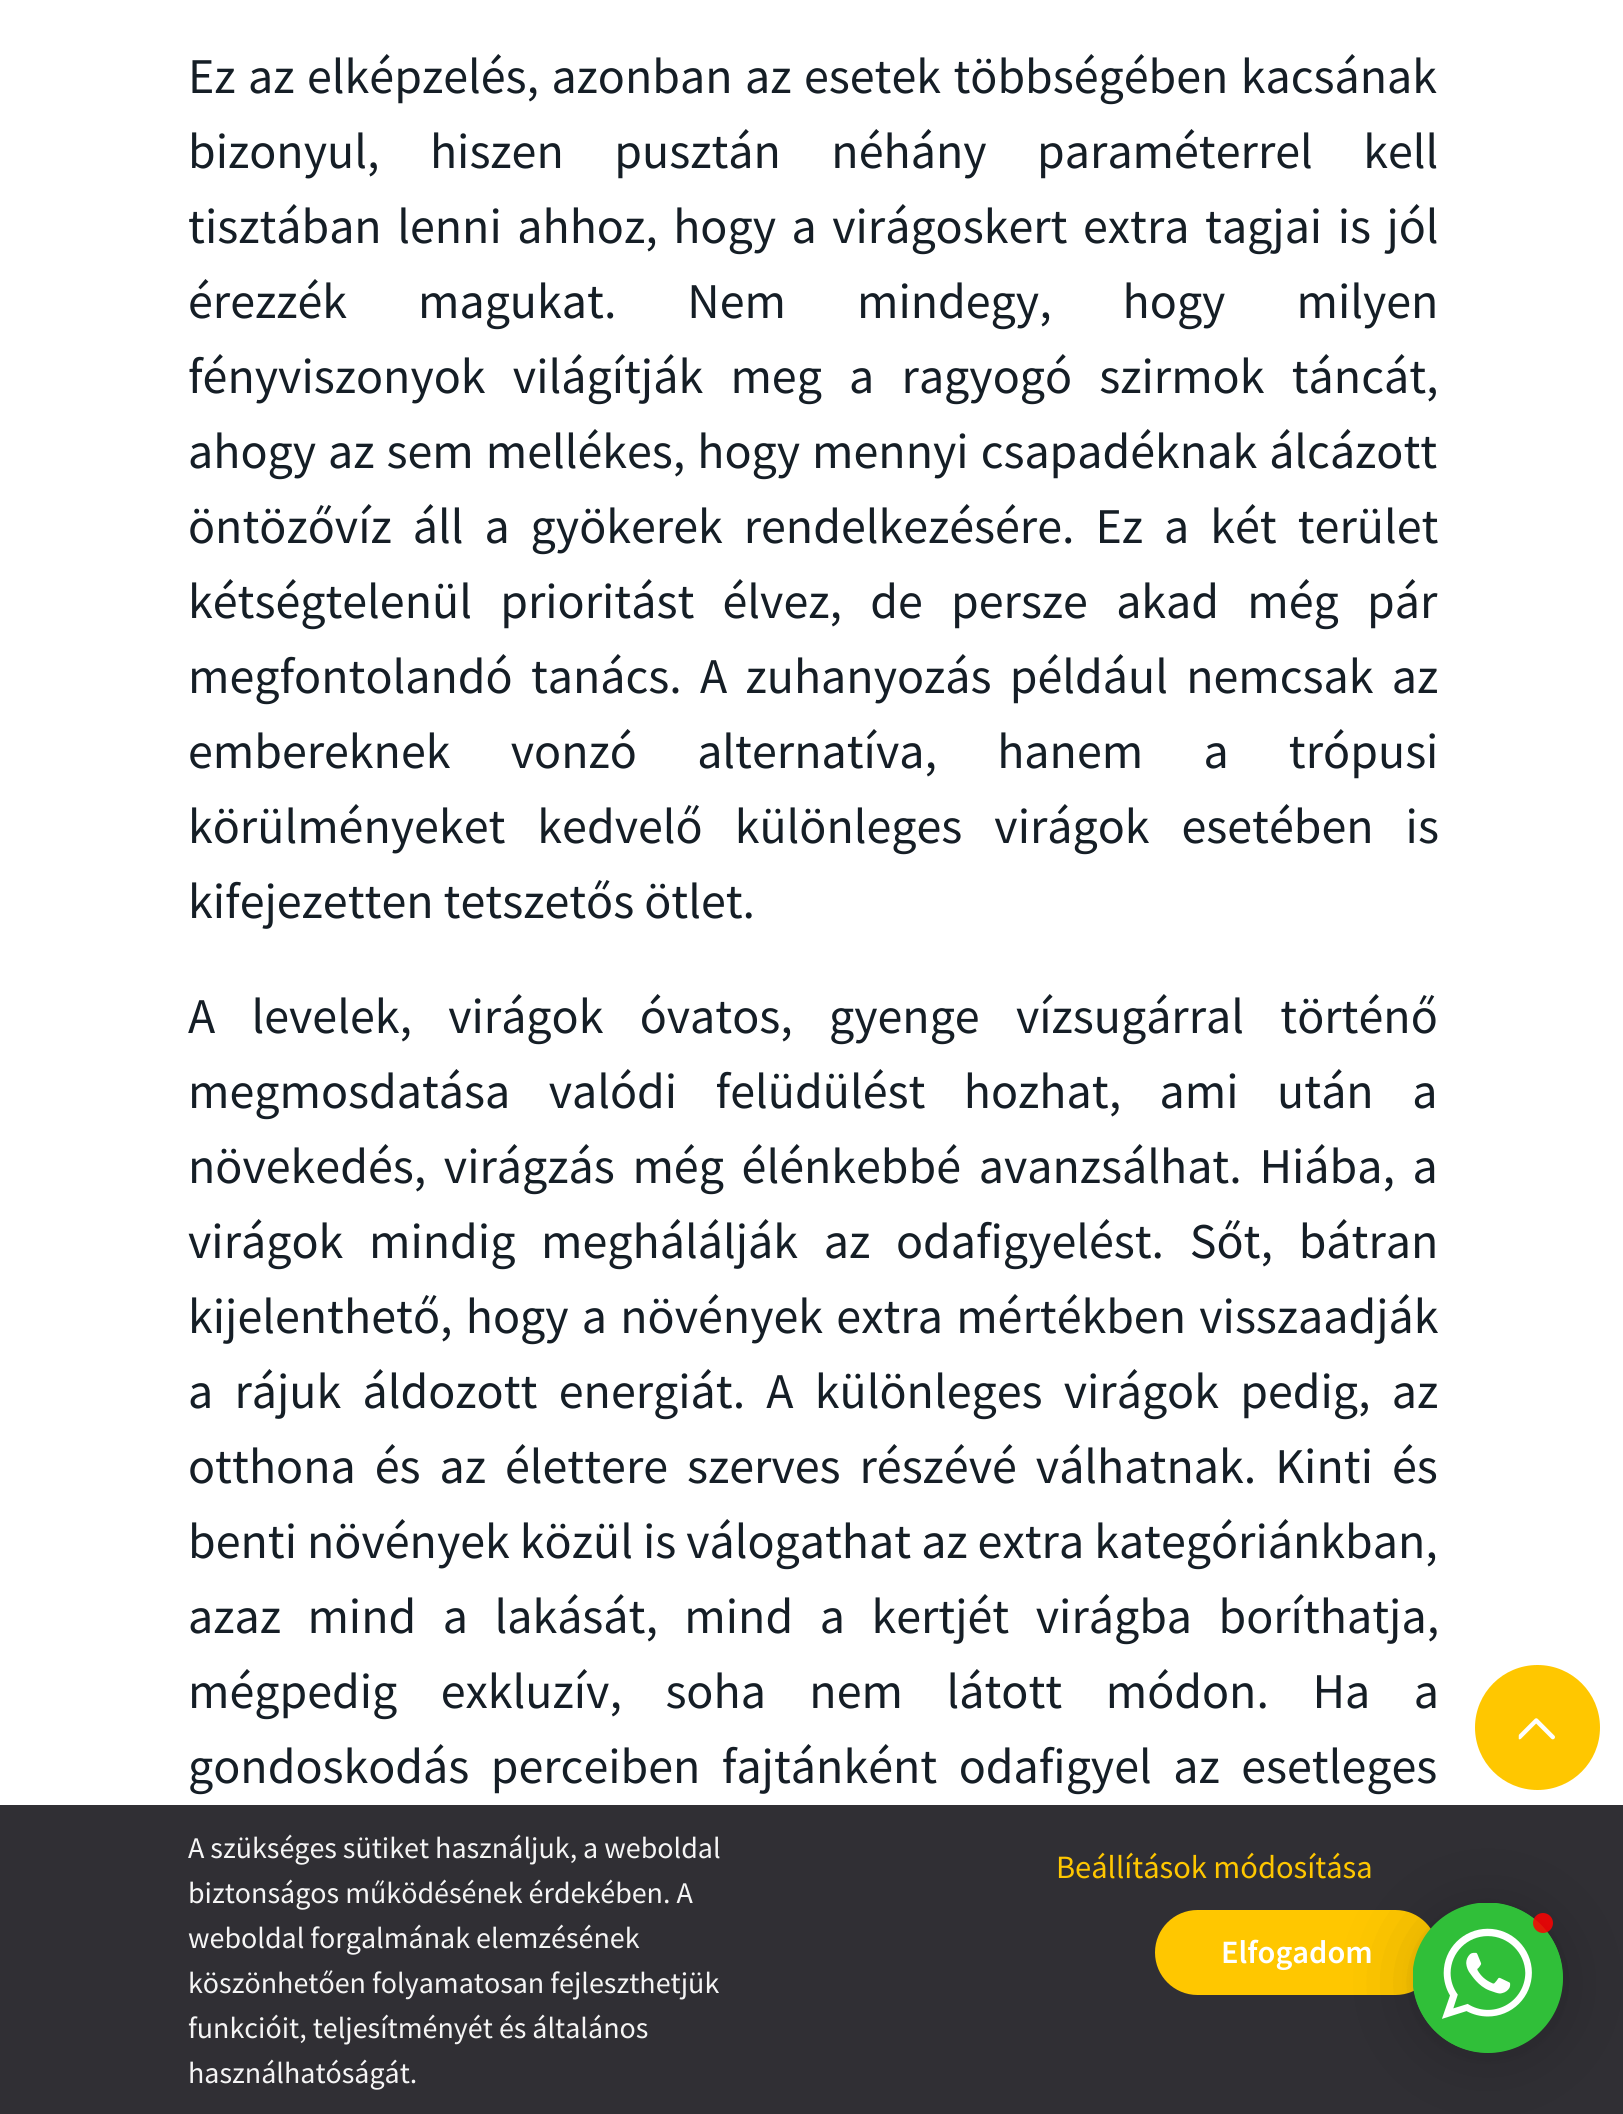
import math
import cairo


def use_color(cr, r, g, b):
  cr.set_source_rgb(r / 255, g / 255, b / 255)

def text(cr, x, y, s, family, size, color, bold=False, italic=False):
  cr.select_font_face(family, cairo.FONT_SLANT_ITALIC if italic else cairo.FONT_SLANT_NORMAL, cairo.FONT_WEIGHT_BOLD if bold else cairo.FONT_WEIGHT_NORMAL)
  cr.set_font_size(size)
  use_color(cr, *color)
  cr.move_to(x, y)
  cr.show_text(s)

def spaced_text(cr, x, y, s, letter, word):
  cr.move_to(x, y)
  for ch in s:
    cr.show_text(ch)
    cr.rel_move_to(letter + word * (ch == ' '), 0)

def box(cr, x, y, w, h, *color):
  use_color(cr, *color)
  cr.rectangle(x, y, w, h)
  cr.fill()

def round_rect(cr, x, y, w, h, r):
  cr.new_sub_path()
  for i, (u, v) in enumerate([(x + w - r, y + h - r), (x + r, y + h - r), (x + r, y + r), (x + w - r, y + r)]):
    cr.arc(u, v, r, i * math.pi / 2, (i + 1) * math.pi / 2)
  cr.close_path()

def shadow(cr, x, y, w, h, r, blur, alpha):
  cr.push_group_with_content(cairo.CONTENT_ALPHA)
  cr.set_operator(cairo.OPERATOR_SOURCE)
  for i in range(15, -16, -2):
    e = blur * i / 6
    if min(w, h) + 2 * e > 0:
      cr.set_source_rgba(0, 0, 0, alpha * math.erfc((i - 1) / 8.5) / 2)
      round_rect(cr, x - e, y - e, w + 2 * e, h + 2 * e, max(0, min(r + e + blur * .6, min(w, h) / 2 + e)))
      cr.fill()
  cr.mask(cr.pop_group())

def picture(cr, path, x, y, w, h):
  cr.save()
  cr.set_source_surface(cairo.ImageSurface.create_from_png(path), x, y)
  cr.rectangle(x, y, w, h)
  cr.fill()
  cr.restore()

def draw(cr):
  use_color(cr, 255, 255, 255)
  cr.paint()
  use_color(cr, 255, 199, 0)
  cr.arc(1537.5, 1727.5, 61, 0, 2 * math.pi)
  cr.fill_preserve()
  cr.set_line_width(3)
  cr.stroke()
  picture(cr, "img_01.png", 1518, 1718, 37, 22)
  box(cr, 0, 1805, 1623, 309, 48, 47, 52)
  use_color(cr, 255, 199, 0)
  round_rect(cr, 1156.5, 1911.5, 280, 82, 41)
  cr.fill_preserve()
  cr.stroke()
  use_color(cr, 0, 0, 0)
  shadow(cr, 1413, 1908, 150, 150, 75, 40, 0.16)
  shadow(cr, 1413, 1905, 150, 150, 75, 7.5, 0.06)
  use_color(cr, 48, 191, 57)
  cr.arc(1488, 1978, 75, 0, 2 * math.pi)
  cr.fill()
  picture(cr, "img_02.png", 1413, 1903, 150, 150)
  cr.set_source_rgba(1, 0, 0, 0.85)
  cr.arc(1543, 1923, 10, 0, 2 * math.pi)
  cr.fill()
  cr.select_font_face("Source Sans Pro")
  cr.set_font_size(50)
  use_color(cr, 21, 30, 38)
  spaced_text(cr, 188, 93, "Ez az elképzelés, azonban az esetek többségében kacsának", 0, 2.5)
  spaced_text(cr, 188, 168, "bizonyul, hiszen pusztán néhány paraméterrel kell", 0, 40.5)
  spaced_text(cr, 188, 243, "tisztában lenni ahhoz, hogy a virágoskert extra tagjai is jól", 0, 5.5)
  spaced_text(cr, 188, 318, "érezzék magukat. Nem mindegy, hogy milyen", 0, 61)
  spaced_text(cr, 188, 393, "fényviszonyok világítják meg a ragyogó szirmok táncát,", 0, 17.25)
  spaced_text(cr, 188, 468, "ahogy az sem mellékes, hogy mennyi csapadéknak álcázott", 0, 2)
  spaced_text(cr, 188, 543, "öntözővíz áll a gyökerek rendelkezésére. Ez a két terület", 0, 11)
  spaced_text(cr, 188, 618, "kétségtelenül prioritást élvez, de persze akad még pár", 0, 18.25)
  spaced_text(cr, 188, 693, "megfontolandó tanács. A zuhanyozás például nemcsak az", 0, 8.25)
  spaced_text(cr, 188, 768, "embereknek vonzó alternatíva, hanem a trópusi", 0, 50.25)
  spaced_text(cr, 188, 843, "körülményeket kedvelő különleges virágok esetében is", 0, 22)
  text(cr, 188, 918, "kifejezetten tetszetős ötlet.", "Source Sans Pro", 50, (21, 30, 38))
  spaced_text(cr, 188, 1033, "A levelek, virágok óvatos, gyenge vízsugárral történő", 0, 26.25)
  spaced_text(cr, 188, 1108, "megmosdatása valódi felüdülést hozhat, ami után a", 0, 28.5)
  spaced_text(cr, 188, 1183, "növekedés, virágzás még élénkebbé avanzsálhat. Hiába, a", 0, 7.75)
  spaced_text(cr, 188, 1258, "virágok mindig meghálálják az odafigyelést. Sőt, bátran", 0, 15.75)
  spaced_text(cr, 188, 1333, "kijelenthető, hogy a növények extra mértékben visszaadják", 0, 3.25)
  spaced_text(cr, 188, 1408, "a rájuk áldozott energiát. A különleges virágok pedig, az", 0, 11.25)
  spaced_text(cr, 188, 1483, "otthona és az élettere szerves részévé válhatnak. Kinti és", 0, 9)
  text(cr, 188, 1558, "benti növények közül is válogathat az extra kategóriánkban,", "Source Sans Pro", 50, (21, 30, 38))
  spaced_text(cr, 188, 1633, "azaz mind a lakását, mind a kertjét virágba boríthatja,", 0, 16.5)
  spaced_text(cr, 188, 1708, "mégpedig exkluzív, soha nem látott módon. Ha a", 0, 33.5)
  spaced_text(cr, 188, 1783, "gondoskodás perceiben fajtánként odafigyel az esetleges", 0, 11.5)
  text(cr, 188, 1858, "A szükséges sütiket használjuk, a weboldal", "Source Sans Pro", 30, (245, 245, 245))
  text(cr, 188, 1903, "biztonságos működésének érdekében. A", "Source Sans Pro", 30, (245, 245, 245))
  text(cr, 188, 1948, "weboldal forgalmának elemzésének", "Source Sans Pro", 30, (245, 245, 245))
  text(cr, 188, 1993, "köszönhetően folyamatosan fejleszthetjük", "Source Sans Pro", 30, (245, 245, 245))
  text(cr, 188, 2038, "funkcióit, teljesítményét és általános", "Source Sans Pro", 30, (245, 245, 245))
  text(cr, 188, 2083, "használhatóságát.", "Source Sans Pro", 30, (245, 245, 245))
  text(cr, 1056, 1878, "Beállítások módosítása", "Source Sans Pro", 32.5, (255, 199, 0))
  text(cr, 1221, 1963, "Elfogadom", "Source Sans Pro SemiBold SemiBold", 32.5, (255, 255, 255))


surface = cairo.ImageSurface(cairo.FORMAT_RGB24, 1623, 2114)
cr = cairo.Context(surface)
options = cairo.FontOptions()
options.set_hint_metrics(cairo.HINT_METRICS_OFF)
options.set_hint_style(cairo.HINT_STYLE_NONE)
cr.set_font_options(options)
cr.set_miter_limit(4)
draw(cr)
surface.write_to_png("out.png")
